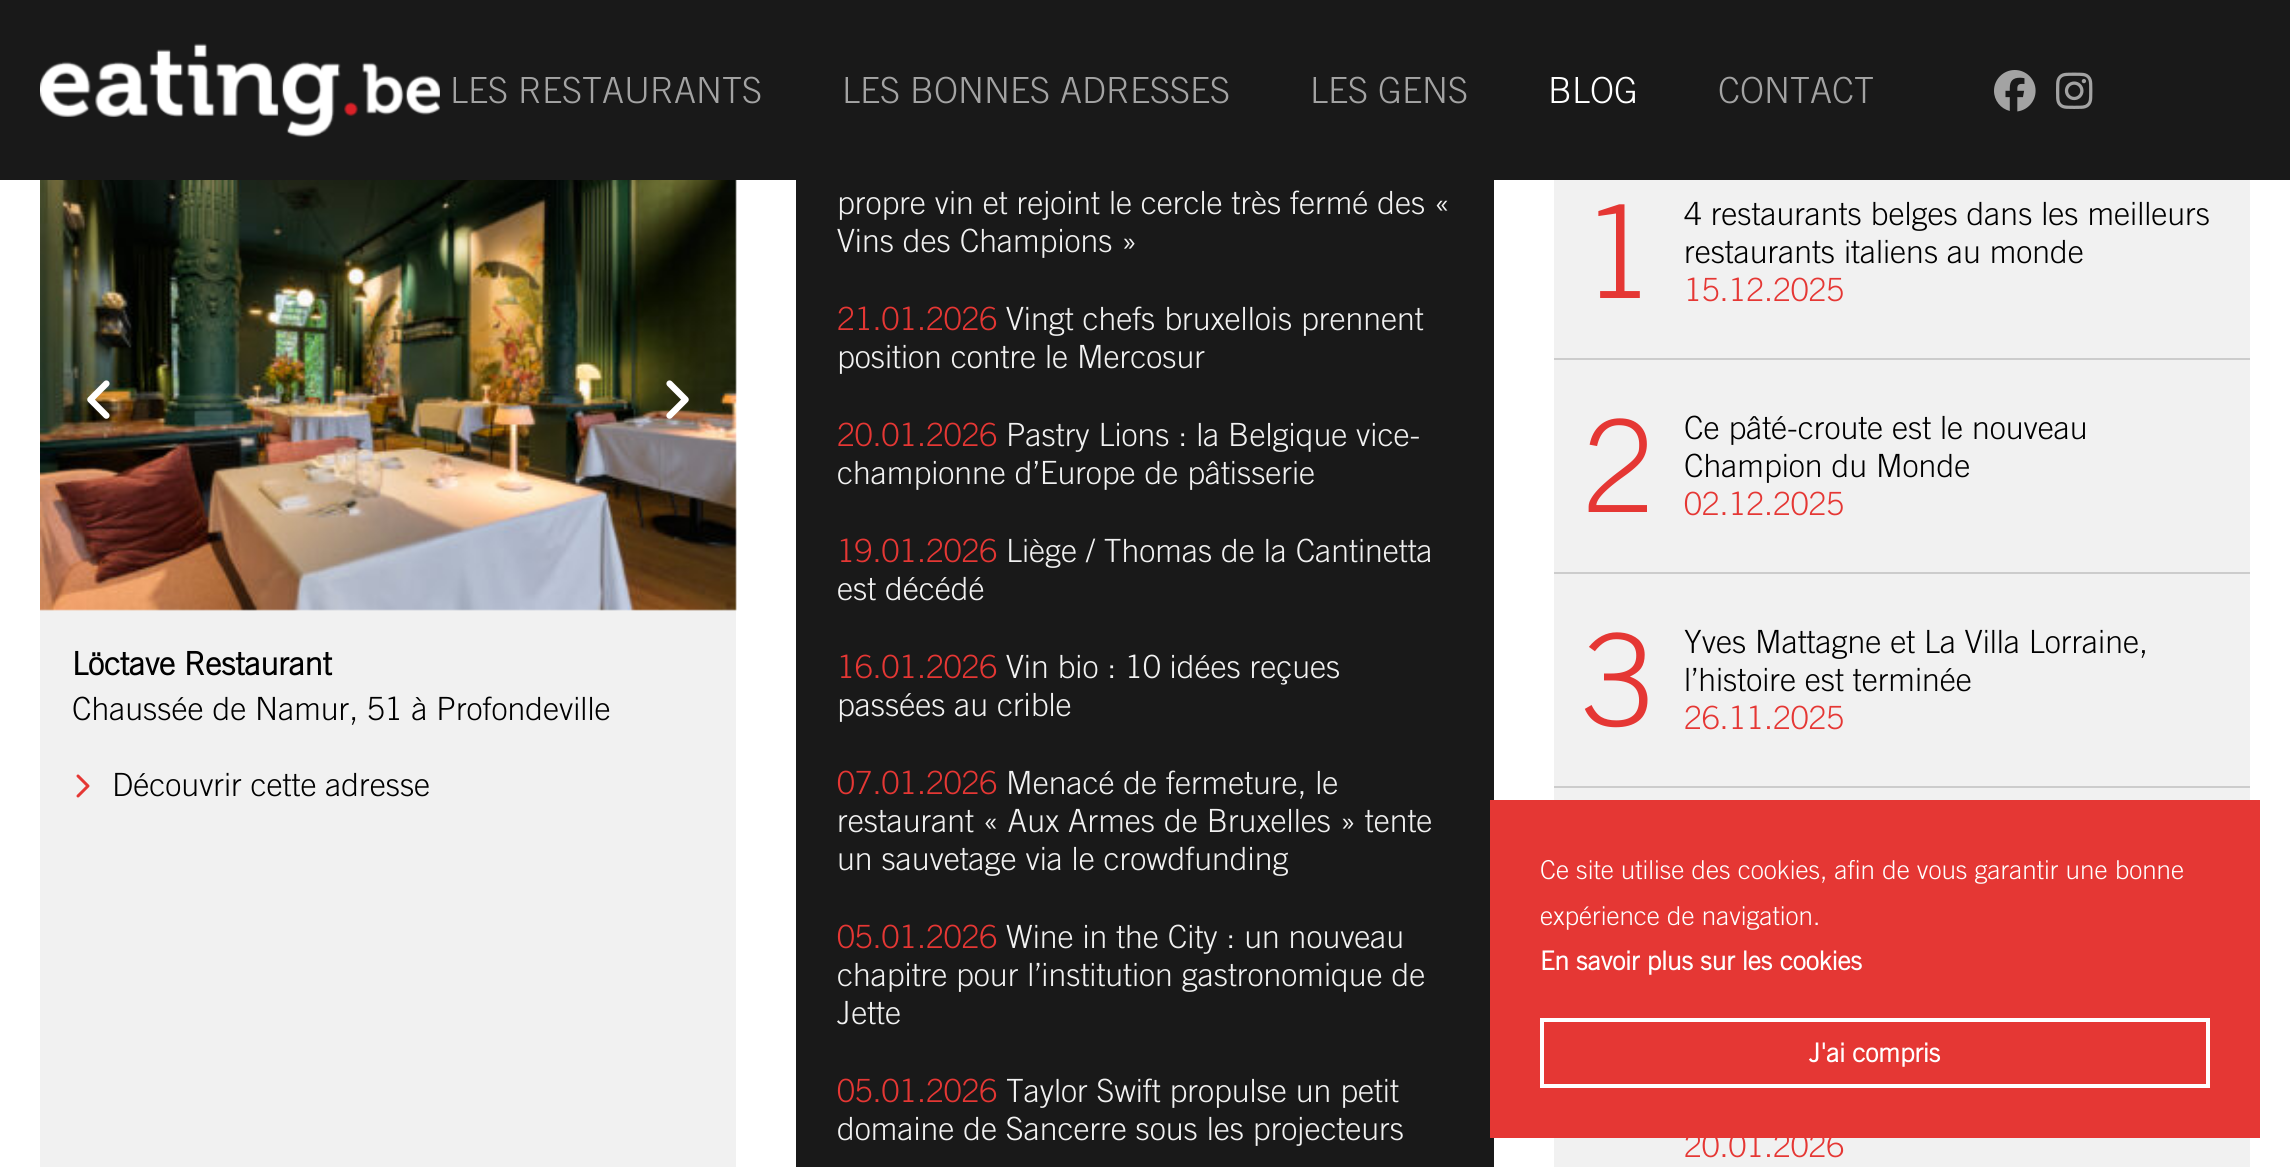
import math
import cairo


def use_color(cr, r, g, b):
  cr.set_source_rgb(r / 255, g / 255, b / 255)

def text(cr, x, y, s, family, size, color, bold=False, italic=False):
  cr.select_font_face(family, cairo.FONT_SLANT_ITALIC if italic else cairo.FONT_SLANT_NORMAL, cairo.FONT_WEIGHT_BOLD if bold else cairo.FONT_WEIGHT_NORMAL)
  cr.set_font_size(size)
  use_color(cr, *color)
  cr.move_to(x, y)
  cr.show_text(s)

def box(cr, x, y, w, h, *color):
  use_color(cr, *color)
  cr.rectangle(x, y, w, h)
  cr.fill()

def picture(cr, path, x, y, w, h):
  cr.save()
  cr.set_source_surface(cairo.ImageSurface.create_from_png(path), x, y)
  cr.rectangle(x, y, w, h)
  cr.fill()
  cr.restore()

def draw(cr):
  use_color(cr, 255, 255, 255)
  cr.paint()
  box(cr, 0, 0, 2290, 180, 25, 25, 25)
  picture(cr, "img_01.png", 40, 43, 400, 94)
  picture(cr, "img_02.png", 1994, 70, 42, 42)
  picture(cr, "img_03.png", 2056, 72, 37, 37)
  box(cr, 40, 180, 696, 987, 241, 241, 241)
  picture(cr, "img_06.png", 40, 180, 697, 431)
  picture(cr, "img_04.png", 87, 380, 23, 39)
  picture(cr, "img_05.png", 666, 380, 23, 39)
  picture(cr, "img_07.png", 76, 774, 14, 24)
  box(cr, 796, 180, 698, 987, 25, 25, 25)
  box(cr, 1554, 180, 696, 987, 241, 241, 241)
  box(cr, 1554, 358, 696, 2, 204, 204, 204)
  box(cr, 1554, 572, 696, 2, 204, 204, 204)
  box(cr, 1554, 786, 696, 2, 204, 204, 204)
  box(cr, 1490, 800, 770, 338, 229, 55, 52)
  cr.rectangle(1542, 1020, 666, 66)
  use_color(cr, 255, 255, 255)
  cr.set_line_width(4)
  cr.stroke()
  text(cr, 450, 103, "LES RESTAURANTS", "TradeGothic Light", 36, (163, 163, 163))
  text(cr, 842, 103, "LES BONNES ADRESSES", "TradeGothic Light", 36, (163, 163, 163))
  text(cr, 1310, 103, "LES GENS", "TradeGothic Light", 36, (163, 163, 163))
  text(cr, 1548, 103, "BLOG", "TradeGothic Light", 36, (255, 255, 255))
  text(cr, 1718, 103, "CONTACT", "TradeGothic Light", 36, (163, 163, 163))
  text(cr, 72, 675, "Löctave Restaurant", "TradeGothic", 32, (0, 0, 0), bold=True)
  text(cr, 72, 720, "Chaussée de Namur, 51 à Profondeville", "TradeGothic Light", 32, (0, 0, 0))
  text(cr, 112, 796, "Découvrir cette adresse", "TradeGothic Light", 32, (0, 0, 0))
  text(cr, 837, 214, "propre vin et rejoint le cercle très fermé des «", "TradeGothic Light", 32, (241, 241, 241))
  text(cr, 837, 252, "Vins des Champions »", "TradeGothic Light", 32, (241, 241, 241))
  text(cr, 837, 330, "21.01.2026", "TradeGothic Light", 32, (229, 55, 52))
  text(cr, 1006, 330, "Vingt chefs bruxellois prennent", "TradeGothic Light", 32, (241, 241, 241))
  text(cr, 837, 368, "position contre le Mercosur", "TradeGothic Light", 32, (241, 241, 241))
  text(cr, 837, 446, "20.01.2026", "TradeGothic Light", 32, (229, 55, 52))
  text(cr, 1006, 446, "Pastry Lions : la Belgique vice-", "TradeGothic Light", 32, (241, 241, 241))
  text(cr, 837, 484, "championne d’Europe de pâtisserie", "TradeGothic Light", 32, (241, 241, 241))
  text(cr, 837, 562, "19.01.2026", "TradeGothic Light", 32, (229, 55, 52))
  text(cr, 1006, 562, "Liège / Thomas de la Cantinetta", "TradeGothic Light", 32, (241, 241, 241))
  text(cr, 837, 600, "est décédé", "TradeGothic Light", 32, (241, 241, 241))
  text(cr, 837, 678, "16.01.2026", "TradeGothic Light", 32, (229, 55, 52))
  text(cr, 1006, 678, "Vin bio : 10 idées reçues", "TradeGothic Light", 32, (241, 241, 241))
  text(cr, 837, 716, "passées au crible", "TradeGothic Light", 32, (241, 241, 241))
  text(cr, 837, 794, "07.01.2026", "TradeGothic Light", 32, (229, 55, 52))
  text(cr, 1006, 794, "Menacé de fermeture, le", "TradeGothic Light", 32, (241, 241, 241))
  text(cr, 837, 832, "restaurant « Aux Armes de Bruxelles » tente", "TradeGothic Light", 32, (241, 241, 241))
  text(cr, 837, 870, "un sauvetage via le crowdfunding", "TradeGothic Light", 32, (241, 241, 241))
  text(cr, 837, 948, "05.01.2026", "TradeGothic Light", 32, (229, 55, 52))
  text(cr, 1006, 948, "Wine in the City : un nouveau", "TradeGothic Light", 32, (241, 241, 241))
  text(cr, 837, 986, "chapitre pour l’institution gastronomique de", "TradeGothic Light", 32, (241, 241, 241))
  text(cr, 837, 1024, "Jette", "TradeGothic Light", 32, (241, 241, 241))
  text(cr, 837, 1102, "05.01.2026", "TradeGothic Light", 32, (229, 55, 52))
  text(cr, 1006, 1102, "Taylor Swift propulse un petit", "TradeGothic Light", 32, (241, 241, 241))
  text(cr, 837, 1140, "domaine de Sancerre sous les projecteurs", "TradeGothic Light", 32, (241, 241, 241))
  text(cr, 1583, 298, "1", "TradeGothic Light", 128, (229, 55, 52))
  text(cr, 1684, 225, "4 restaurants belges dans les meilleurs", "TradeGothic Light", 32, (0, 0, 0))
  text(cr, 1684, 263, "restaurants italiens au monde", "TradeGothic Light", 32, (0, 0, 0))
  text(cr, 1684, 301, "15.12.2025", "TradeGothic Light", 32, (229, 55, 52))
  text(cr, 1583, 512, "2", "TradeGothic Light", 128, (229, 55, 52))
  text(cr, 1684, 439, "Ce pâté-croute est le nouveau", "TradeGothic Light", 32, (0, 0, 0))
  text(cr, 1684, 477, "Champion du Monde", "TradeGothic Light", 32, (0, 0, 0))
  text(cr, 1684, 515, "02.12.2025", "TradeGothic Light", 32, (229, 55, 52))
  text(cr, 1583, 726, "3", "TradeGothic Light", 128, (229, 55, 52))
  text(cr, 1684, 653, "Yves Mattagne et La Villa Lorraine,", "TradeGothic Light", 32, (0, 0, 0))
  text(cr, 1684, 691, "l’histoire est terminée", "TradeGothic Light", 32, (0, 0, 0))
  text(cr, 1684, 729, "26.11.2025", "TradeGothic Light", 32, (229, 55, 52))
  text(cr, 1684, 1157, "20.01.2026", "TradeGothic Light", 32, (229, 55, 52))
  text(cr, 1540, 879, "Ce site utilise des cookies, afin de vous garantir une bonne", "TradeGothic Light", 26, (255, 255, 255))
  text(cr, 1540, 925, "expérience de navigation.", "TradeGothic Light", 26, (255, 255, 255))
  text(cr, 1540, 970, "En savoir plus sur les cookies", "TradeGothic", 26, (255, 255, 255), bold=True)
  text(cr, 1809, 1062, "J'ai compris", "TradeGothic", 26, (255, 255, 255), bold=True)


surface = cairo.ImageSurface(cairo.FORMAT_RGB24, 2290, 1167)
cr = cairo.Context(surface)
options = cairo.FontOptions()
options.set_hint_metrics(cairo.HINT_METRICS_OFF)
options.set_hint_style(cairo.HINT_STYLE_NONE)
cr.set_font_options(options)
cr.set_miter_limit(4)
draw(cr)
surface.write_to_png("out.png")
